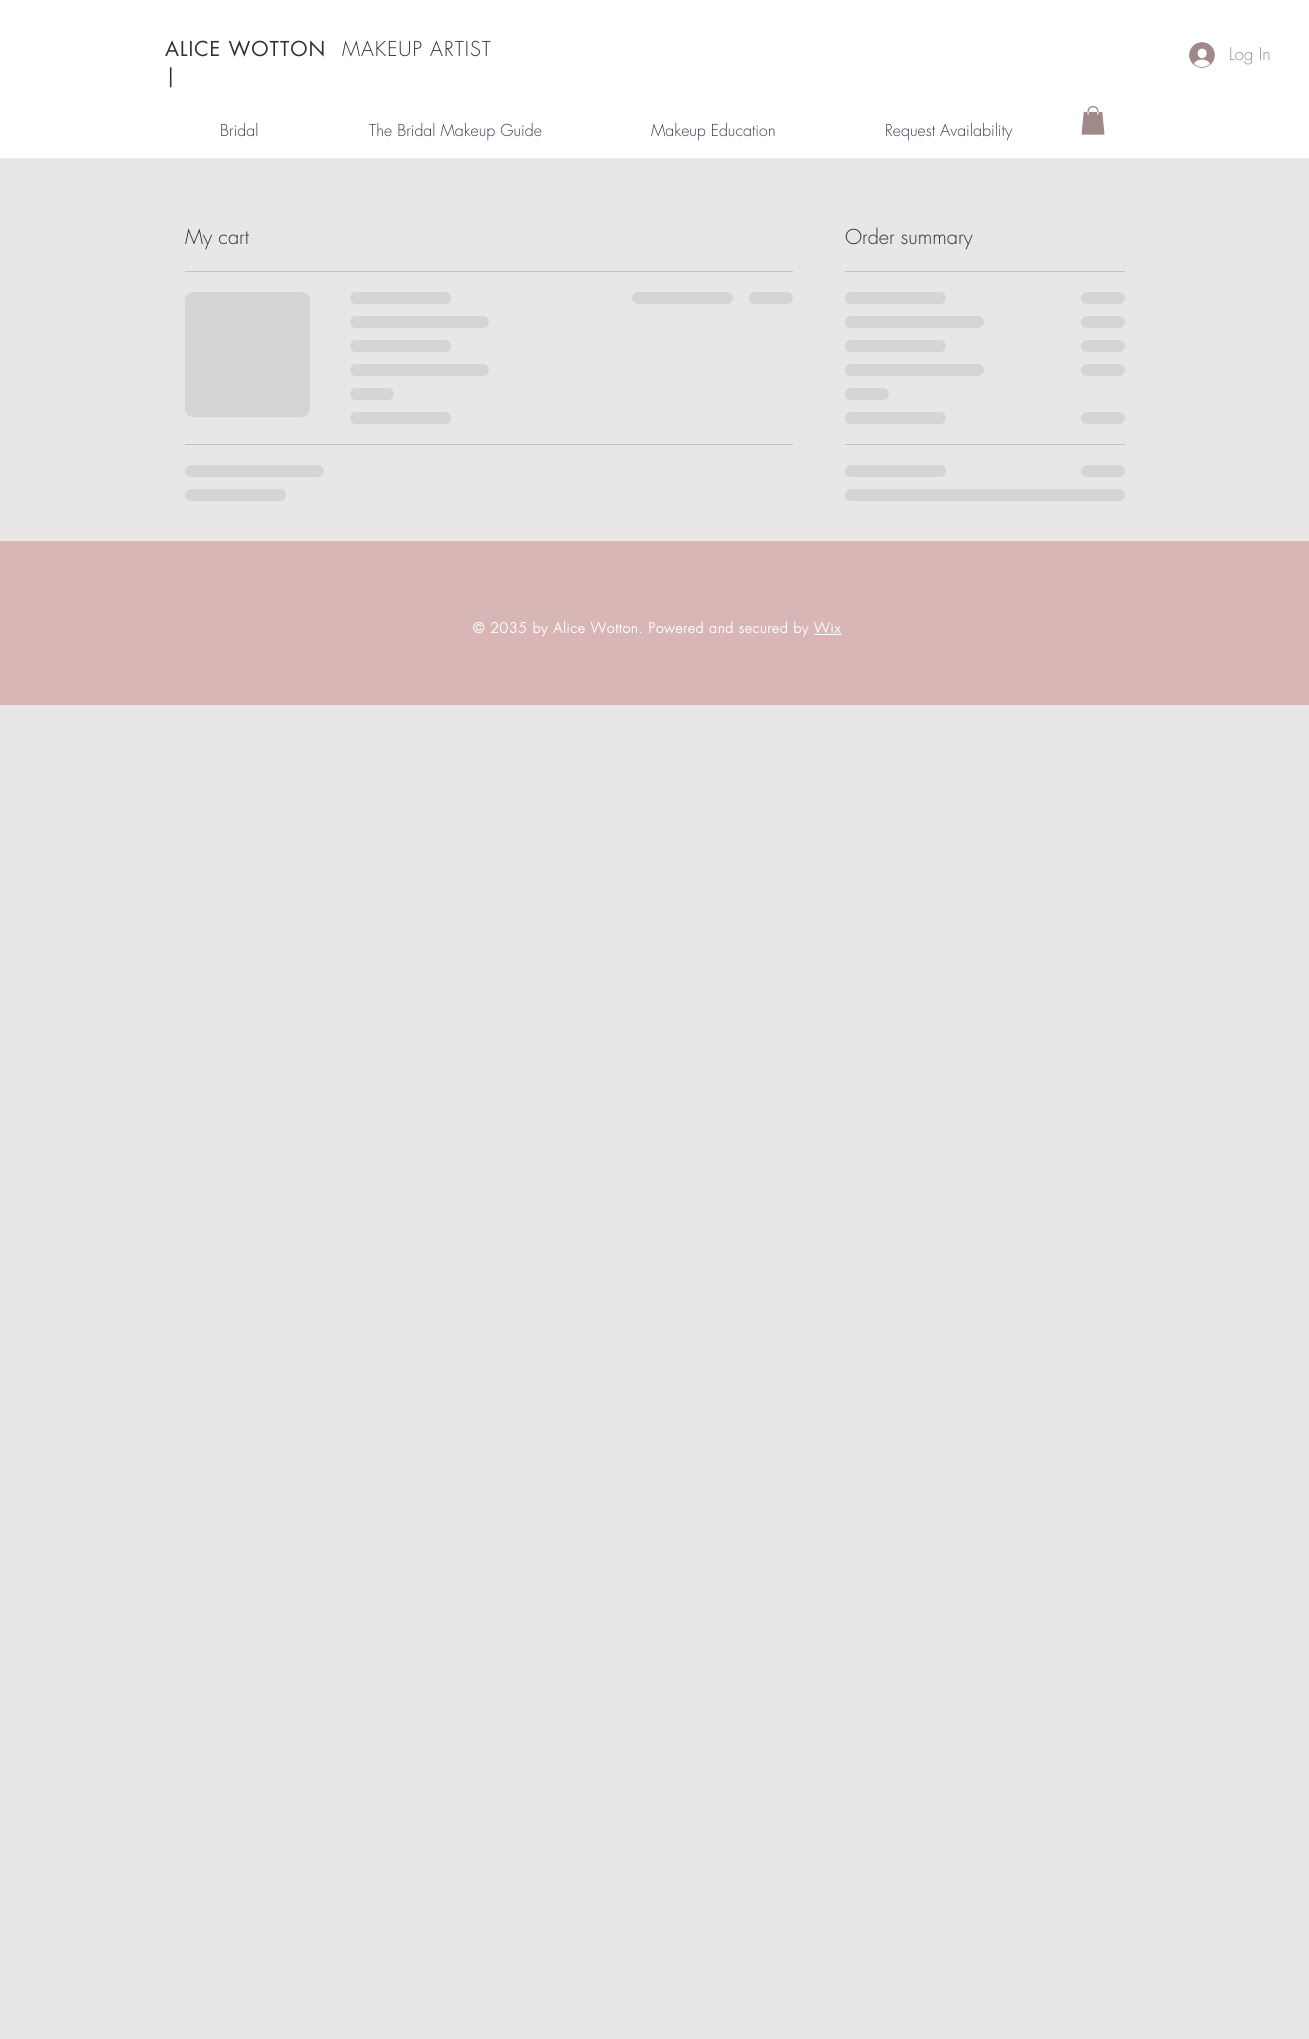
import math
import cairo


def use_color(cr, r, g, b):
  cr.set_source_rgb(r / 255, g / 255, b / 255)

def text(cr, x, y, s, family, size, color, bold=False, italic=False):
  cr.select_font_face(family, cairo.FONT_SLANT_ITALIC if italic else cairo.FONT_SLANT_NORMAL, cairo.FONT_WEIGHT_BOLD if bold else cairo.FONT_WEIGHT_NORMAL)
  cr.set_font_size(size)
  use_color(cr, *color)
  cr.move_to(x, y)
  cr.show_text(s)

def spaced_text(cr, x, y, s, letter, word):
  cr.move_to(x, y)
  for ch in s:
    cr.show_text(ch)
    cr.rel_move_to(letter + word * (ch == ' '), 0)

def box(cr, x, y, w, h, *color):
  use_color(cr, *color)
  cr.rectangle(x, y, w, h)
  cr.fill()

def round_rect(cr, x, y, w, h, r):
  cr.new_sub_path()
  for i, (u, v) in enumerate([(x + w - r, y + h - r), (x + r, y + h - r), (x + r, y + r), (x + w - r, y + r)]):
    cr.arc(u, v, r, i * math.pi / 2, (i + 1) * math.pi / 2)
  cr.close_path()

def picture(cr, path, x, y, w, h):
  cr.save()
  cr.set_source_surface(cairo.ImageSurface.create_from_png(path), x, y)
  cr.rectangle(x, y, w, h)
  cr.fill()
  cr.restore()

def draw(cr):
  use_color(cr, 232, 230, 230)
  cr.paint()
  box(cr, 0, 0, 1309, 158, 255, 255, 255)
  picture(cr, "img_01.png", 1189, 42, 26, 26)
  picture(cr, "img_02.png", 1081, 106, 24, 29)
  box(cr, 185, 271, 608, 1, 195, 194, 194)
  gradient = cairo.LinearGradient(185, 355, 685, 355)
  gradient.add_color_stop_rgba(0.25, 0.839, 0.831, 0.831, 1)
  gradient.add_color_stop_rgba(0.37, 0.765, 0.761, 0.761, 1)
  gradient.add_color_stop_rgba(0.63, 0.839, 0.831, 0.831, 1)
  cr.set_source(gradient)
  round_rect(cr, 185, 292, 125, 125, 8)
  cr.fill()
  gradient = cairo.LinearGradient(350, 298, 754, 298)
  gradient.add_color_stop_rgba(0.25, 0.839, 0.831, 0.831, 1)
  gradient.add_color_stop_rgba(0.37, 0.765, 0.761, 0.761, 1)
  gradient.add_color_stop_rgba(0.63, 0.839, 0.831, 0.831, 1)
  cr.set_source(gradient)
  round_rect(cr, 350, 292, 101, 12, 6)
  cr.fill()
  gradient = cairo.LinearGradient(350, 322, 906, 322)
  gradient.add_color_stop_rgba(0.25, 0.839, 0.831, 0.831, 1)
  gradient.add_color_stop_rgba(0.37, 0.765, 0.761, 0.761, 1)
  gradient.add_color_stop_rgba(0.63, 0.839, 0.831, 0.831, 1)
  cr.set_source(gradient)
  round_rect(cr, 350, 316, 139, 12, 6)
  cr.fill()
  gradient = cairo.LinearGradient(350, 346, 754, 346)
  gradient.add_color_stop_rgba(0.25, 0.839, 0.831, 0.831, 1)
  gradient.add_color_stop_rgba(0.37, 0.765, 0.761, 0.761, 1)
  gradient.add_color_stop_rgba(0.63, 0.839, 0.831, 0.831, 1)
  cr.set_source(gradient)
  round_rect(cr, 350, 340, 101, 12, 6)
  cr.fill()
  gradient = cairo.LinearGradient(350, 370, 906, 370)
  gradient.add_color_stop_rgba(0.25, 0.839, 0.831, 0.831, 1)
  gradient.add_color_stop_rgba(0.37, 0.765, 0.761, 0.761, 1)
  gradient.add_color_stop_rgba(0.63, 0.839, 0.831, 0.831, 1)
  cr.set_source(gradient)
  round_rect(cr, 350, 364, 139, 12, 6)
  cr.fill()
  gradient = cairo.LinearGradient(350, 394, 526, 394)
  gradient.add_color_stop_rgba(0.25, 0.839, 0.831, 0.831, 1)
  gradient.add_color_stop_rgba(0.37, 0.765, 0.761, 0.761, 1)
  gradient.add_color_stop_rgba(0.63, 0.839, 0.831, 0.831, 1)
  cr.set_source(gradient)
  round_rect(cr, 350, 388, 44, 12, 6)
  cr.fill()
  gradient = cairo.LinearGradient(350, 418, 754, 418)
  gradient.add_color_stop_rgba(0.25, 0.839, 0.831, 0.831, 1)
  gradient.add_color_stop_rgba(0.37, 0.765, 0.761, 0.761, 1)
  gradient.add_color_stop_rgba(0.63, 0.839, 0.831, 0.831, 1)
  cr.set_source(gradient)
  round_rect(cr, 350, 412, 101, 12, 6)
  cr.fill()
  gradient = cairo.LinearGradient(632, 298, 1036, 298)
  gradient.add_color_stop_rgba(0.25, 0.839, 0.831, 0.831, 1)
  gradient.add_color_stop_rgba(0.37, 0.765, 0.761, 0.761, 1)
  gradient.add_color_stop_rgba(0.63, 0.839, 0.831, 0.831, 1)
  cr.set_source(gradient)
  round_rect(cr, 632, 292, 101, 12, 6)
  cr.fill()
  gradient = cairo.LinearGradient(749, 298, 925, 298)
  gradient.add_color_stop_rgba(0.25, 0.839, 0.831, 0.831, 1)
  gradient.add_color_stop_rgba(0.37, 0.765, 0.761, 0.761, 1)
  gradient.add_color_stop_rgba(0.63, 0.839, 0.831, 0.831, 1)
  cr.set_source(gradient)
  round_rect(cr, 749, 292, 44, 12, 6)
  cr.fill()
  box(cr, 185, 444, 608, 1, 195, 194, 194)
  gradient = cairo.LinearGradient(185, 471, 741, 471)
  gradient.add_color_stop_rgba(0.25, 0.839, 0.831, 0.831, 1)
  gradient.add_color_stop_rgba(0.37, 0.765, 0.761, 0.761, 1)
  gradient.add_color_stop_rgba(0.63, 0.839, 0.831, 0.831, 1)
  cr.set_source(gradient)
  round_rect(cr, 185, 465, 139, 12, 6)
  cr.fill()
  gradient = cairo.LinearGradient(185, 495, 589, 495)
  gradient.add_color_stop_rgba(0.25, 0.839, 0.831, 0.831, 1)
  gradient.add_color_stop_rgba(0.37, 0.765, 0.761, 0.761, 1)
  gradient.add_color_stop_rgba(0.63, 0.839, 0.831, 0.831, 1)
  cr.set_source(gradient)
  round_rect(cr, 185, 489, 101, 12, 6)
  cr.fill()
  box(cr, 845, 271, 280, 1, 195, 194, 194)
  gradient = cairo.LinearGradient(845, 298, 1249, 298)
  gradient.add_color_stop_rgba(0.25, 0.839, 0.831, 0.831, 1)
  gradient.add_color_stop_rgba(0.37, 0.765, 0.761, 0.761, 1)
  gradient.add_color_stop_rgba(0.63, 0.839, 0.831, 0.831, 1)
  cr.set_source(gradient)
  round_rect(cr, 845, 292, 101, 12, 6)
  cr.fill()
  gradient = cairo.LinearGradient(1081, 298, 1257, 298)
  gradient.add_color_stop_rgba(0.25, 0.839, 0.831, 0.831, 1)
  gradient.add_color_stop_rgba(0.37, 0.765, 0.761, 0.761, 1)
  gradient.add_color_stop_rgba(0.63, 0.839, 0.831, 0.831, 1)
  cr.set_source(gradient)
  round_rect(cr, 1081, 292, 44, 12, 6)
  cr.fill()
  gradient = cairo.LinearGradient(845, 322, 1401, 322)
  gradient.add_color_stop_rgba(0.25, 0.839, 0.831, 0.831, 1)
  gradient.add_color_stop_rgba(0.37, 0.765, 0.761, 0.761, 1)
  gradient.add_color_stop_rgba(0.63, 0.839, 0.831, 0.831, 1)
  cr.set_source(gradient)
  round_rect(cr, 845, 316, 139, 12, 6)
  cr.fill()
  gradient = cairo.LinearGradient(1081, 322, 1257, 322)
  gradient.add_color_stop_rgba(0.25, 0.839, 0.831, 0.831, 1)
  gradient.add_color_stop_rgba(0.37, 0.765, 0.761, 0.761, 1)
  gradient.add_color_stop_rgba(0.63, 0.839, 0.831, 0.831, 1)
  cr.set_source(gradient)
  round_rect(cr, 1081, 316, 44, 12, 6)
  cr.fill()
  gradient = cairo.LinearGradient(845, 346, 1249, 346)
  gradient.add_color_stop_rgba(0.25, 0.839, 0.831, 0.831, 1)
  gradient.add_color_stop_rgba(0.37, 0.765, 0.761, 0.761, 1)
  gradient.add_color_stop_rgba(0.63, 0.839, 0.831, 0.831, 1)
  cr.set_source(gradient)
  round_rect(cr, 845, 340, 101, 12, 6)
  cr.fill()
  gradient = cairo.LinearGradient(1081, 346, 1257, 346)
  gradient.add_color_stop_rgba(0.25, 0.839, 0.831, 0.831, 1)
  gradient.add_color_stop_rgba(0.37, 0.765, 0.761, 0.761, 1)
  gradient.add_color_stop_rgba(0.63, 0.839, 0.831, 0.831, 1)
  cr.set_source(gradient)
  round_rect(cr, 1081, 340, 44, 12, 6)
  cr.fill()
  gradient = cairo.LinearGradient(845, 370, 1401, 370)
  gradient.add_color_stop_rgba(0.25, 0.839, 0.831, 0.831, 1)
  gradient.add_color_stop_rgba(0.37, 0.765, 0.761, 0.761, 1)
  gradient.add_color_stop_rgba(0.63, 0.839, 0.831, 0.831, 1)
  cr.set_source(gradient)
  round_rect(cr, 845, 364, 139, 12, 6)
  cr.fill()
  gradient = cairo.LinearGradient(1081, 370, 1257, 370)
  gradient.add_color_stop_rgba(0.25, 0.839, 0.831, 0.831, 1)
  gradient.add_color_stop_rgba(0.37, 0.765, 0.761, 0.761, 1)
  gradient.add_color_stop_rgba(0.63, 0.839, 0.831, 0.831, 1)
  cr.set_source(gradient)
  round_rect(cr, 1081, 364, 44, 12, 6)
  cr.fill()
  gradient = cairo.LinearGradient(845, 394, 1021, 394)
  gradient.add_color_stop_rgba(0.25, 0.839, 0.831, 0.831, 1)
  gradient.add_color_stop_rgba(0.37, 0.765, 0.761, 0.761, 1)
  gradient.add_color_stop_rgba(0.63, 0.839, 0.831, 0.831, 1)
  cr.set_source(gradient)
  round_rect(cr, 845, 388, 44, 12, 6)
  cr.fill()
  gradient = cairo.LinearGradient(845, 418, 1249, 418)
  gradient.add_color_stop_rgba(0.25, 0.839, 0.831, 0.831, 1)
  gradient.add_color_stop_rgba(0.37, 0.765, 0.761, 0.761, 1)
  gradient.add_color_stop_rgba(0.63, 0.839, 0.831, 0.831, 1)
  cr.set_source(gradient)
  round_rect(cr, 845, 412, 101, 12, 6)
  cr.fill()
  gradient = cairo.LinearGradient(1081, 418, 1257, 418)
  gradient.add_color_stop_rgba(0.25, 0.839, 0.831, 0.831, 1)
  gradient.add_color_stop_rgba(0.37, 0.765, 0.761, 0.761, 1)
  gradient.add_color_stop_rgba(0.63, 0.839, 0.831, 0.831, 1)
  cr.set_source(gradient)
  round_rect(cr, 1081, 412, 44, 12, 6)
  cr.fill()
  box(cr, 845, 444, 280, 1, 195, 194, 194)
  gradient = cairo.LinearGradient(845, 471, 1249, 471)
  gradient.add_color_stop_rgba(0.25, 0.839, 0.831, 0.831, 1)
  gradient.add_color_stop_rgba(0.37, 0.765, 0.761, 0.761, 1)
  gradient.add_color_stop_rgba(0.63, 0.839, 0.831, 0.831, 1)
  cr.set_source(gradient)
  round_rect(cr, 845, 465, 101, 12, 6)
  cr.fill()
  gradient = cairo.LinearGradient(1081, 471, 1257, 471)
  gradient.add_color_stop_rgba(0.25, 0.839, 0.831, 0.831, 1)
  gradient.add_color_stop_rgba(0.37, 0.765, 0.761, 0.761, 1)
  gradient.add_color_stop_rgba(0.63, 0.839, 0.831, 0.831, 1)
  cr.set_source(gradient)
  round_rect(cr, 1081, 465, 44, 12, 6)
  cr.fill()
  gradient = cairo.LinearGradient(845, 495, 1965, 495)
  gradient.add_color_stop_rgba(0.25, 0.839, 0.831, 0.831, 1)
  gradient.add_color_stop_rgba(0.37, 0.765, 0.761, 0.761, 1)
  gradient.add_color_stop_rgba(0.63, 0.839, 0.831, 0.831, 1)
  cr.set_source(gradient)
  round_rect(cr, 845, 489, 280, 12, 6)
  cr.fill()
  box(cr, 0, 541, 1309, 164, 216, 182, 182)
  box(cr, 814, 634, 28, 1, 255, 255, 255)
  cr.select_font_face("futura")
  cr.set_font_size(20)
  use_color(cr, 48, 48, 48)
  spaced_text(cr, 165, 56, "ALICE WOTTON", 1, 0)
  text(cr, 165, 83, "|", "futura", 20, (48, 48, 48))
  cr.select_font_face("futura Light")
  spaced_text(cr, 342, 56, "MAKEUP ARTIST", 1, 0)
  text(cr, 1229, 60, "Log In", "futura Light", 17, (162, 137, 137))
  text(cr, 220, 136, "Bridal", "futura Light", 16, (51, 60, 75))
  text(cr, 369, 136, "The Bridal Makeup Guide", "futura Light", 16, (51, 60, 75))
  text(cr, 651, 136, "Makeup Education", "futura Light", 16, (51, 60, 75))
  text(cr, 885, 136, "Request Availability", "futura Light", 16, (51, 60, 75))
  text(cr, 185, 244, "My cart", "futura Light", 20, (48, 48, 48))
  text(cr, 845, 244, "Order summary", "futura Light", 20, (48, 48, 48))
  cr.select_font_face("futura", cairo.FONT_SLANT_NORMAL, cairo.FONT_WEIGHT_BOLD)
  cr.set_font_size(14)
  use_color(cr, 255, 255, 255)
  spaced_text(cr, 473, 633, "© 2035 by Alice Wotton. Powered and secured by Wix", 0.7, 0)


surface = cairo.ImageSurface(cairo.FORMAT_RGB24, 1309, 2039)
cr = cairo.Context(surface)
options = cairo.FontOptions()
options.set_hint_metrics(cairo.HINT_METRICS_OFF)
options.set_hint_style(cairo.HINT_STYLE_NONE)
cr.set_font_options(options)
cr.set_miter_limit(4)
draw(cr)
surface.write_to_png("out.png")
